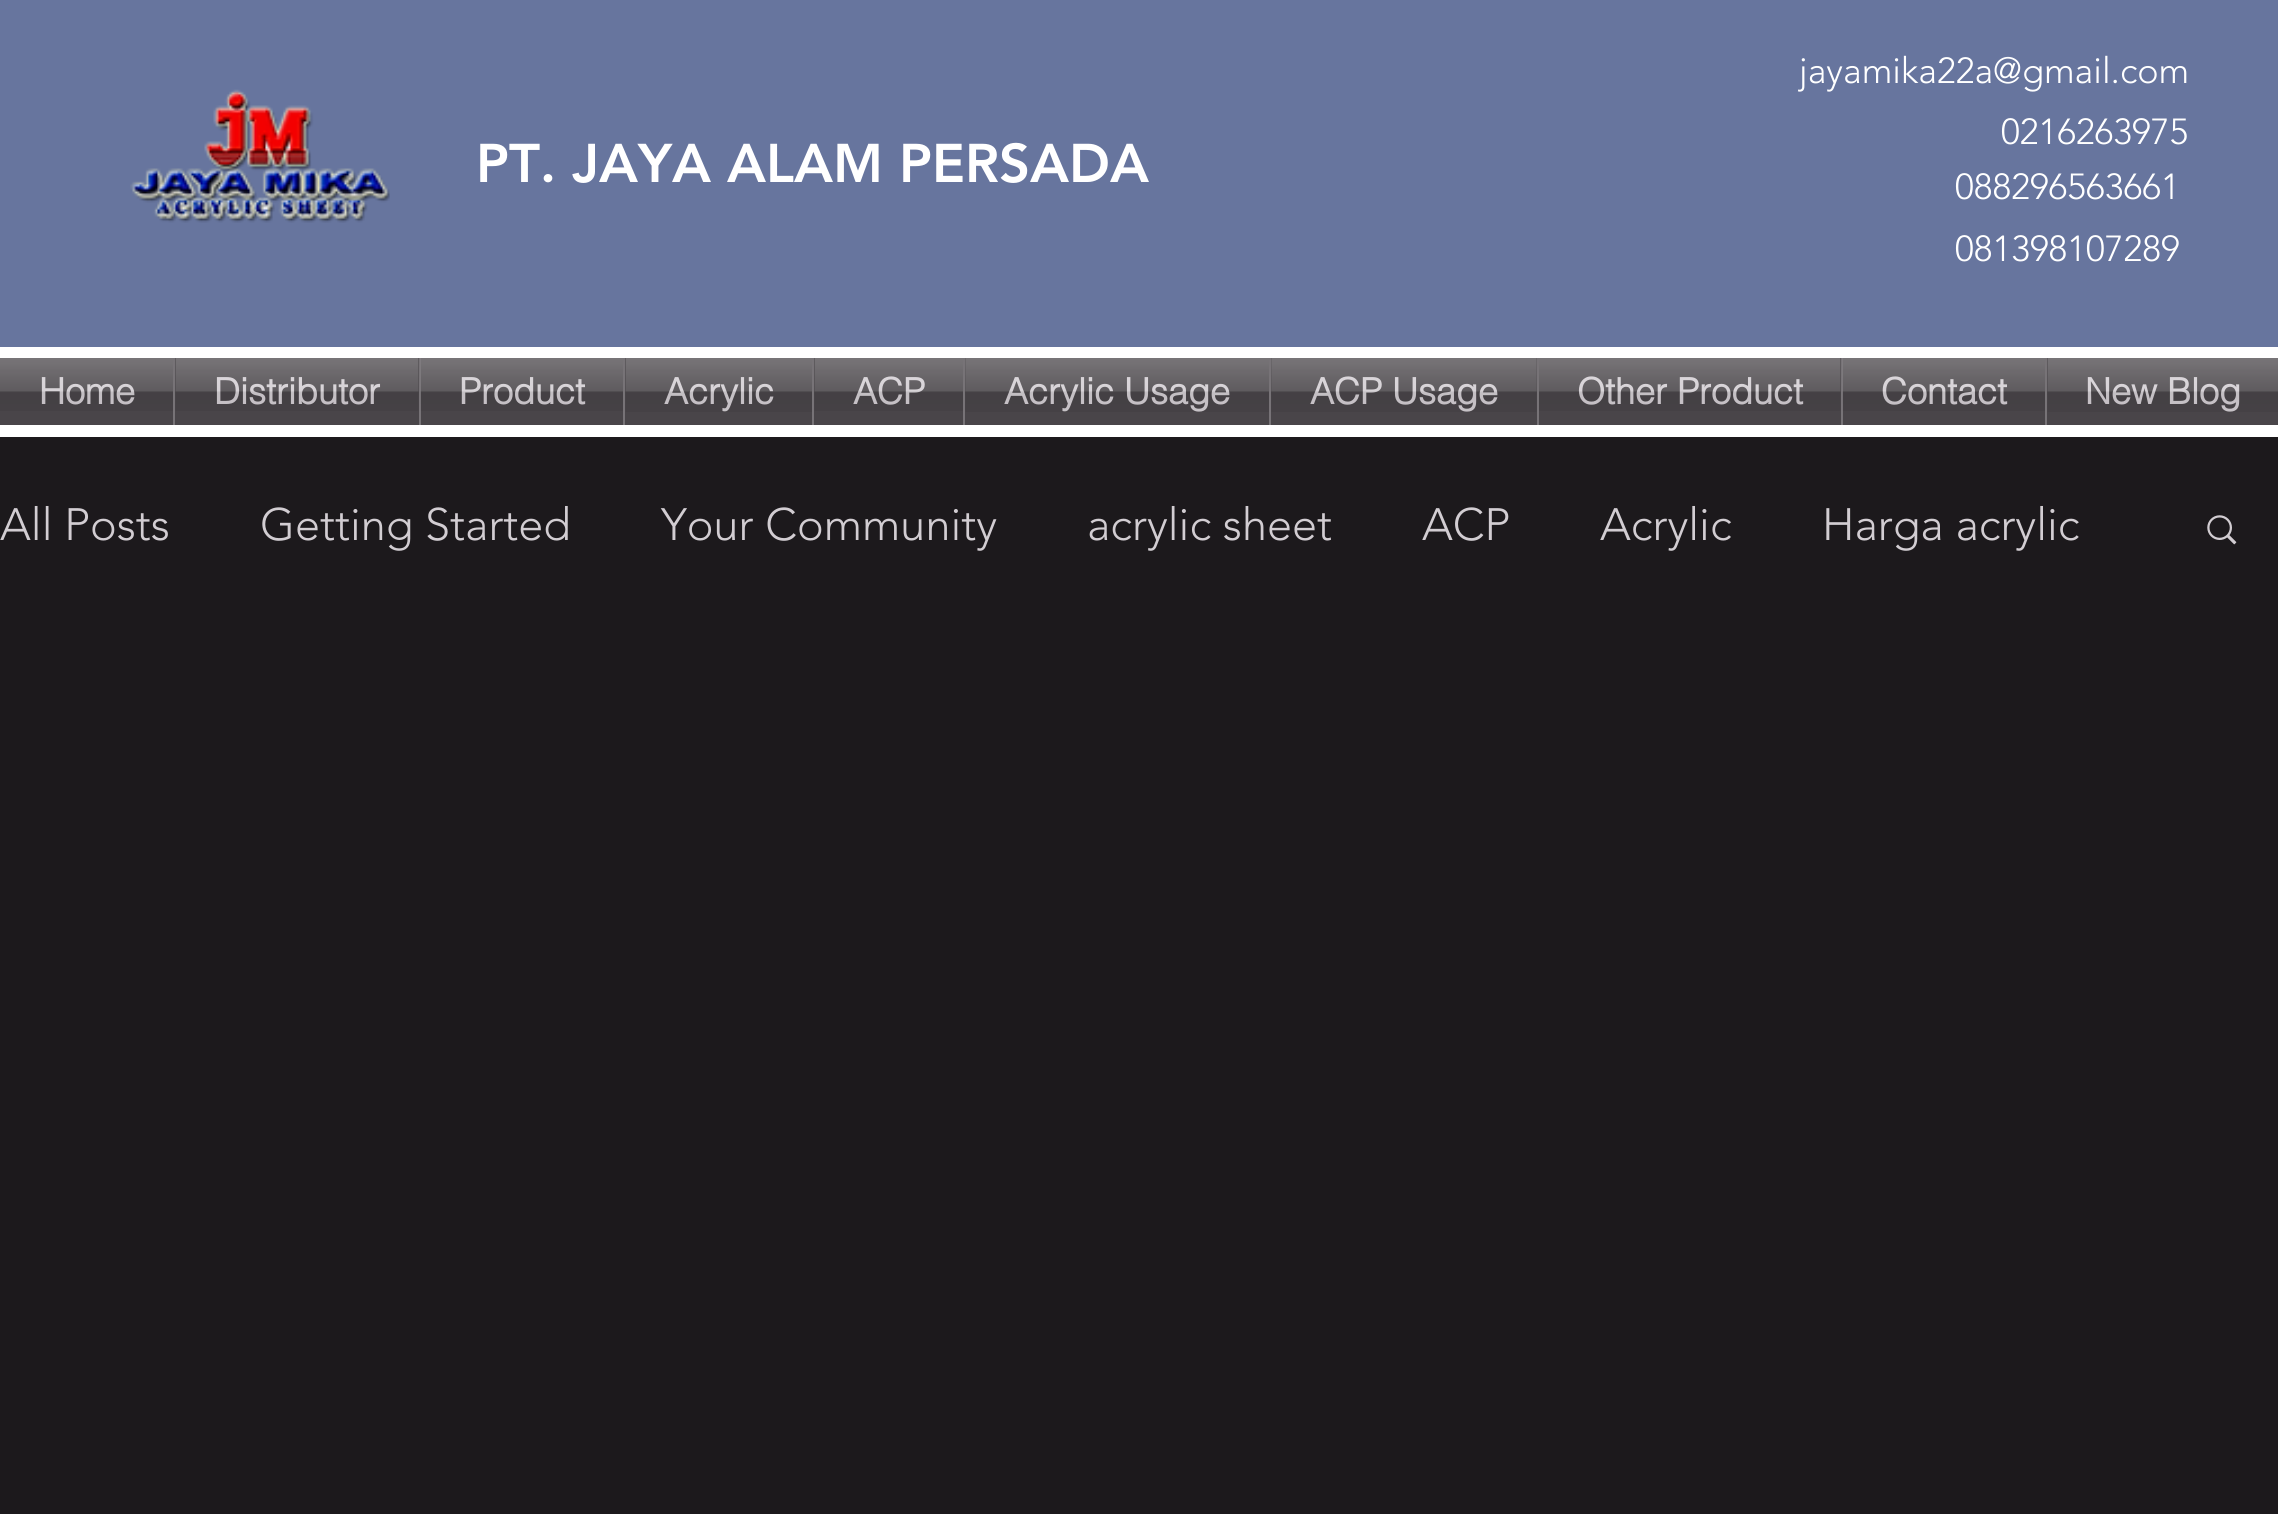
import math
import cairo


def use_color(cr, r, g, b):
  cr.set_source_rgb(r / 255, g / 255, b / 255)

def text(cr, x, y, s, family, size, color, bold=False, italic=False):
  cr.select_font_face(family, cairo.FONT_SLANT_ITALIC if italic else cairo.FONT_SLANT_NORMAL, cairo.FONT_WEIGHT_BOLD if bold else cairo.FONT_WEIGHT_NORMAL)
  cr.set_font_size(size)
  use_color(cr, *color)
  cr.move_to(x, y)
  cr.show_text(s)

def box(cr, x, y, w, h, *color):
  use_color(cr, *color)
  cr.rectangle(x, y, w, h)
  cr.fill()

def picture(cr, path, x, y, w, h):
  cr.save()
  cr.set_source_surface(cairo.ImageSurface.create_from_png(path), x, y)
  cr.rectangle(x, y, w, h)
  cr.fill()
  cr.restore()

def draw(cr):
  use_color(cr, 28, 25, 28)
  cr.paint()
  box(cr, 0, 0, 2278, 347, 103, 117, 158)
  picture(cr, "img_01.png", 130, 89, 260, 134)
  box(cr, 0, 347, 2278, 90, 255, 255, 255)
  box(cr, 0, 358, 173, 67, 73, 69, 73)
  box(cr, 175, 358, 244, 67, 73, 69, 73)
  box(cr, 173, 358, 2, 67, 119, 115, 119)
  box(cr, 421, 358, 202, 67, 73, 69, 73)
  box(cr, 419, 358, 2, 67, 119, 115, 119)
  box(cr, 625, 358, 187, 67, 73, 69, 73)
  box(cr, 623, 358, 2, 67, 119, 115, 119)
  box(cr, 814, 358, 149, 67, 73, 69, 73)
  box(cr, 812, 358, 2, 67, 119, 115, 119)
  box(cr, 965, 358, 304, 67, 73, 69, 73)
  box(cr, 963, 358, 2, 67, 119, 115, 119)
  box(cr, 1271, 358, 266, 67, 73, 69, 73)
  box(cr, 1269, 358, 2, 67, 119, 115, 119)
  box(cr, 1539, 358, 302, 67, 73, 69, 73)
  box(cr, 1537, 358, 2, 67, 119, 115, 119)
  box(cr, 1843, 358, 202, 67, 73, 69, 73)
  box(cr, 1841, 358, 2, 67, 119, 115, 119)
  box(cr, 2047, 358, 231, 67, 73, 69, 73)
  box(cr, 2045, 358, 2, 67, 119, 115, 119)
  picture(cr, "img_12.png", 2207, 515, 30, 30)
  text(cr, 1799, 83, "jayamika22a@gmail.com", "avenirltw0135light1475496 Light", 36, (255, 255, 255))
  text(cr, 2001, 144, "0216263975", "avenirltw0135light1475496 Light", 36, (255, 255, 255))
  text(cr, 476, 182, "PT. JAYA ALAM PERSADA", "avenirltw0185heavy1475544 Black", 54, (255, 255, 255))
  text(cr, 1955, 199, "088296563661", "avenirltw0135light1475496 Light", 36, (255, 255, 255))
  text(cr, 1955, 261, "081398107289", "avenirltw0135light1475496 Light", 36, (255, 255, 255))
  text(cr, 39, 404, "Home", "helvetica", 36, (210, 205, 210), bold=True)
  picture(cr, "img_02.png", 0, 358, 173, 53)
  text(cr, 214, 404, "Distributor", "helvetica", 36, (210, 205, 210), bold=True)
  picture(cr, "img_03.png", 175, 358, 244, 53)
  text(cr, 459, 404, "Product", "helvetica", 36, (210, 205, 210), bold=True)
  picture(cr, "img_04.png", 420, 358, 203, 53)
  text(cr, 664, 404, "Acrylic", "helvetica", 36, (210, 205, 210), bold=True)
  picture(cr, "img_05.png", 625, 358, 187, 54)
  text(cr, 853, 404, "ACP", "helvetica", 36, (210, 205, 210), bold=True)
  picture(cr, "img_06.png", 814, 358, 149, 53)
  text(cr, 1004, 404, "Acrylic Usage", "helvetica", 36, (210, 205, 210), bold=True)
  picture(cr, "img_07.png", 965, 358, 304, 54)
  text(cr, 1310, 404, "ACP Usage", "helvetica", 36, (210, 205, 210), bold=True)
  picture(cr, "img_08.png", 1271, 358, 266, 54)
  text(cr, 1577, 404, "Other Product", "helvetica", 36, (210, 205, 210), bold=True)
  picture(cr, "img_09.png", 1539, 358, 302, 53)
  text(cr, 1881, 404, "Contact", "helvetica", 36, (210, 205, 210), bold=True)
  picture(cr, "img_10.png", 1842, 358, 203, 53)
  text(cr, 2085, 404, "New Blog", "helvetica", 36, (210, 205, 210), bold=True)
  picture(cr, "img_11.png", 2047, 358, 231, 54)
  text(cr, 0, 540, "All Posts", "avenirltw0135light1475496 Light", 45, (210, 205, 210))
  text(cr, 260, 540, "Getting Started", "avenirltw0135light1475496 Light", 45, (210, 205, 210))
  text(cr, 661, 540, "Your Community", "avenirltw0135light1475496 Light", 45, (210, 205, 210))
  text(cr, 1087, 540, "acrylic sheet", "avenirltw0135light1475496 Light", 45, (210, 205, 210))
  text(cr, 1422, 540, "ACP", "avenirltw0135light1475496 Light", 45, (210, 205, 210))
  text(cr, 1600, 540, "Acrylic", "avenirltw0135light1475496 Light", 45, (210, 205, 210))
  text(cr, 1822, 540, "Harga acrylic", "avenirltw0135light1475496 Light", 45, (210, 205, 210))


surface = cairo.ImageSurface(cairo.FORMAT_RGB24, 2278, 1514)
cr = cairo.Context(surface)
options = cairo.FontOptions()
options.set_hint_metrics(cairo.HINT_METRICS_OFF)
options.set_hint_style(cairo.HINT_STYLE_NONE)
cr.set_font_options(options)
cr.set_miter_limit(4)
draw(cr)
surface.write_to_png("out.png")
